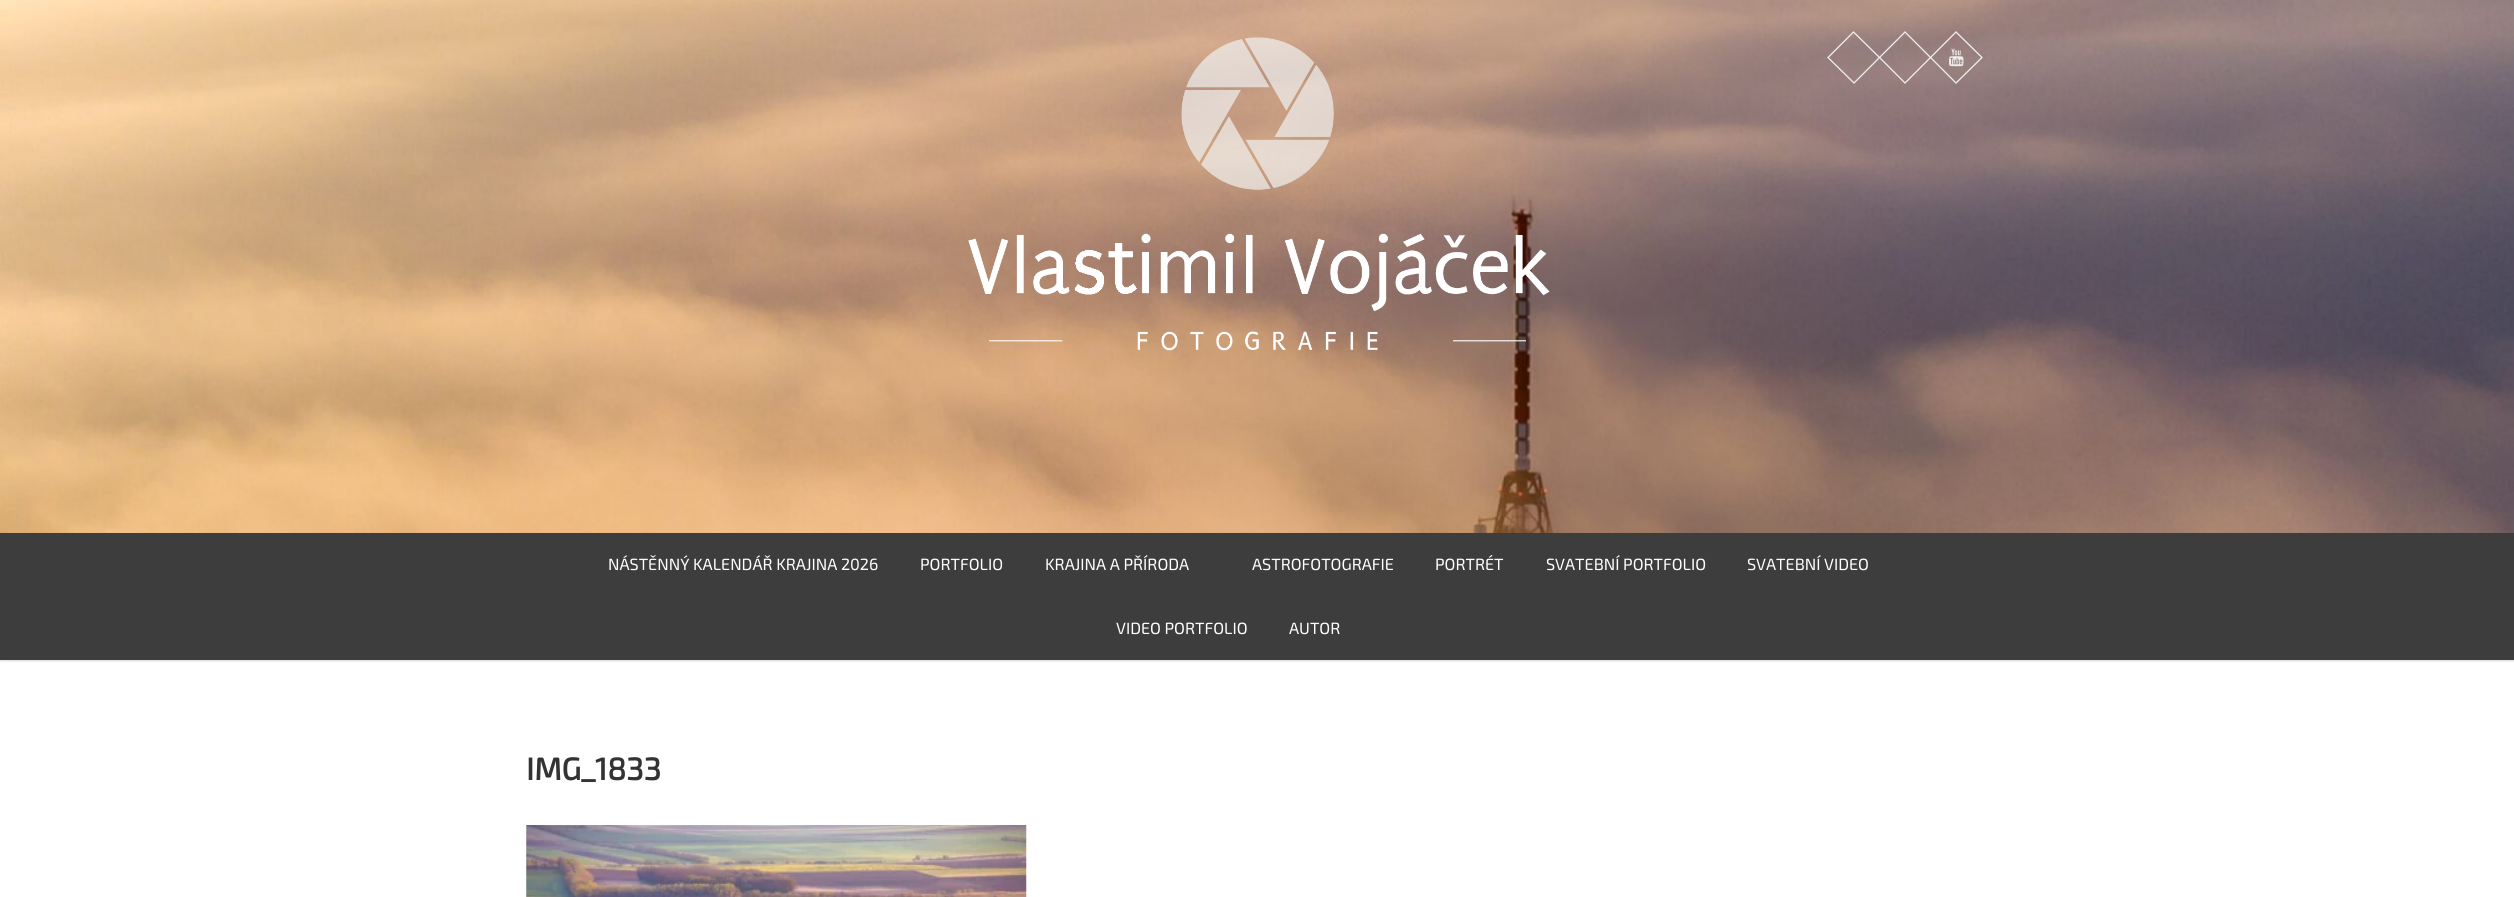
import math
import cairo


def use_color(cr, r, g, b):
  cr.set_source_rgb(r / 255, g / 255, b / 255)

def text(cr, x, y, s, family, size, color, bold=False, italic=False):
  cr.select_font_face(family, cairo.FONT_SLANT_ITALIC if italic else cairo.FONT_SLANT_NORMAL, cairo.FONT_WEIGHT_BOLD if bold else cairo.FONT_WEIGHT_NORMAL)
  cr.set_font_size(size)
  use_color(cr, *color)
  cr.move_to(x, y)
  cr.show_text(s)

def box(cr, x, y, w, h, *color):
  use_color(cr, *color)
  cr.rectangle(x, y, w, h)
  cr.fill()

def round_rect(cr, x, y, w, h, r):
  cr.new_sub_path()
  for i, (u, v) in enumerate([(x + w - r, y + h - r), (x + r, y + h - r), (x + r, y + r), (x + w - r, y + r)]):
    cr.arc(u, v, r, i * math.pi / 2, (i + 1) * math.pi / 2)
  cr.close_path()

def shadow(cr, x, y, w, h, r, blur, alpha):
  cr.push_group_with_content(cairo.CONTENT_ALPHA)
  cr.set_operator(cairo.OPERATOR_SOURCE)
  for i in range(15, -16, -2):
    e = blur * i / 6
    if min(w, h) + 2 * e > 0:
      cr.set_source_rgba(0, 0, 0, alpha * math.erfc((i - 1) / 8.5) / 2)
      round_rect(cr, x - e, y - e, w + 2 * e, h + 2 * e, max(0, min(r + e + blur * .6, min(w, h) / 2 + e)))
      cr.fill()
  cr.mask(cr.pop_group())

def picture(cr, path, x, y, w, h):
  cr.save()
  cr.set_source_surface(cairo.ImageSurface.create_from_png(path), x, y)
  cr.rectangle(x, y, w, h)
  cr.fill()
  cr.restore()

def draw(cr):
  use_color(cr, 255, 255, 255)
  cr.paint()
  picture(cr, "img_01.png", 0, 0, 2514, 533)
  picture(cr, "img_02.png", 968, 37, 582, 314)
  cr.new_path()
  cr.move_to(1828, 57.5)
  cr.line_to(1853.5, 32)
  cr.line_to(1879.5, 57.5)
  cr.line_to(1854, 83)
  cr.close_path()
  use_color(cr, 238, 238, 238)
  cr.set_line_width(1.3)
  cr.stroke()
  cr.new_path()
  cr.move_to(1879.5, 57.5)
  cr.line_to(1905, 32)
  cr.line_to(1930.5, 57.5)
  cr.line_to(1905, 83)
  cr.close_path()
  cr.stroke()
  cr.new_path()
  cr.move_to(1930.5, 57.5)
  cr.line_to(1956, 32)
  cr.line_to(1982, 57.5)
  cr.line_to(1956, 83)
  cr.close_path()
  cr.stroke()
  picture(cr, "img_03.png", 1949, 48, 15, 19)
  use_color(cr, 0, 0, 0)
  shadow(cr, 0, 534, 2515, 127, 0, 1, 0.15)
  box(cr, 0, 533, 2514, 127, 61, 61, 61)
  picture(cr, "img_04.png", 526, 825, 501, 72)
  text(cr, 608, 570, "NÁSTĚNNÝ KALENDÁŘ KRAJINA 2026", "Exo 2", 16.25, (255, 255, 255))
  text(cr, 920, 570, "PORTFOLIO", "Exo 2", 16.25, (255, 255, 255))
  text(cr, 1045, 570, "KRAJINA A PŘÍRODA", "Exo 2", 16.25, (255, 255, 255))
  text(cr, 1252, 570, "ASTROFOTOGRAFIE", "Exo 2", 16.25, (255, 255, 255))
  text(cr, 1435, 570, "PORTRÉT", "Exo 2", 16.25, (255, 255, 255))
  text(cr, 1546, 570, "SVATEBNÍ PORTFOLIO", "Exo 2", 16.25, (255, 255, 255))
  text(cr, 1747, 570, "SVATEBNÍ VIDEO", "Exo 2", 16.25, (255, 255, 255))
  text(cr, 1116, 634, "VIDEO PORTFOLIO", "Exo 2", 16.25, (255, 255, 255))
  text(cr, 1289, 634, "AUTOR", "Exo 2", 16.25, (255, 255, 255))
  text(cr, 526, 780, "IMG_1833", "Exo 2", 31.25, (51, 51, 51), bold=True)


surface = cairo.ImageSurface(cairo.FORMAT_RGB24, 2514, 897)
cr = cairo.Context(surface)
options = cairo.FontOptions()
options.set_hint_metrics(cairo.HINT_METRICS_OFF)
options.set_hint_style(cairo.HINT_STYLE_NONE)
cr.set_font_options(options)
cr.set_miter_limit(4)
draw(cr)
surface.write_to_png("out.png")
